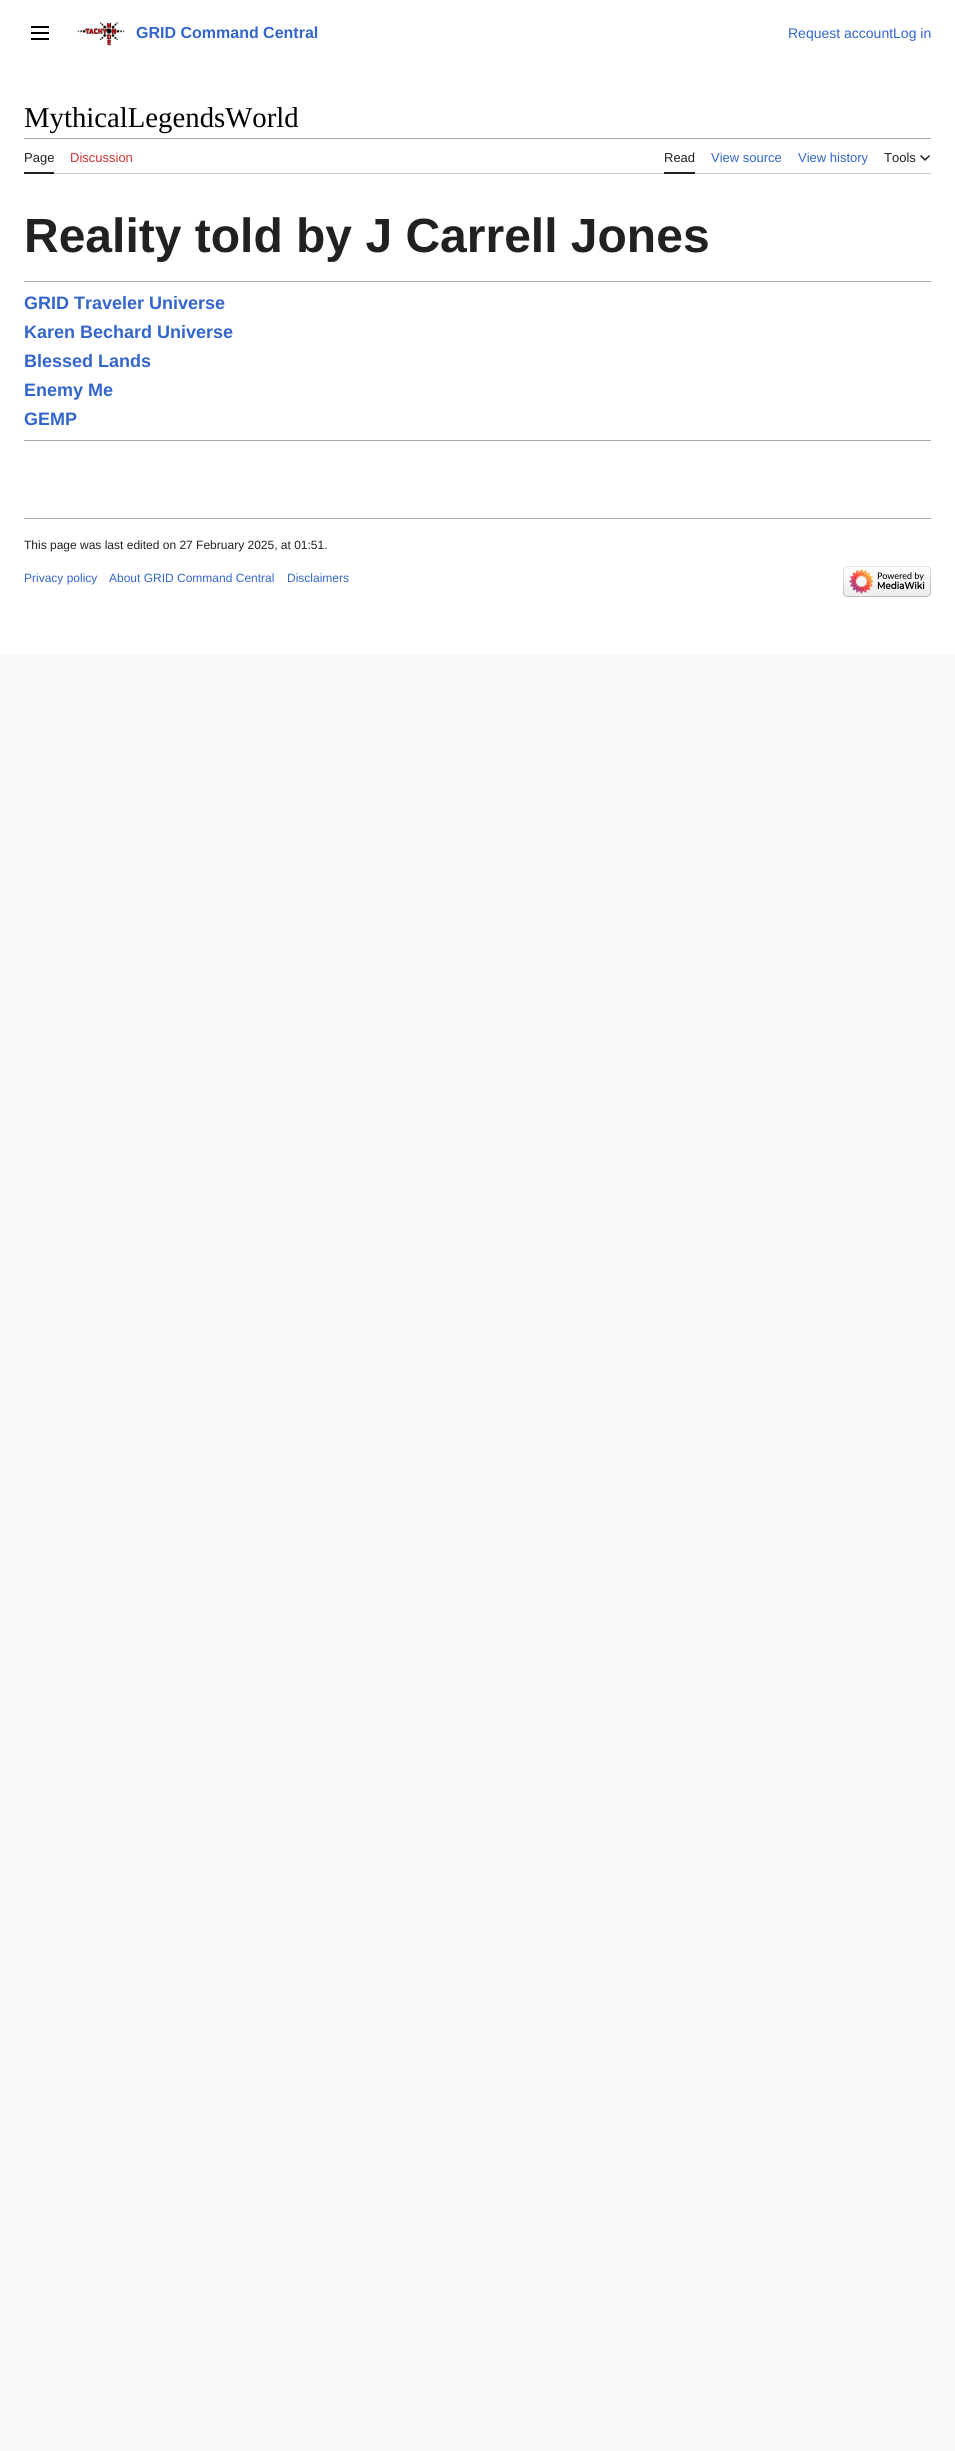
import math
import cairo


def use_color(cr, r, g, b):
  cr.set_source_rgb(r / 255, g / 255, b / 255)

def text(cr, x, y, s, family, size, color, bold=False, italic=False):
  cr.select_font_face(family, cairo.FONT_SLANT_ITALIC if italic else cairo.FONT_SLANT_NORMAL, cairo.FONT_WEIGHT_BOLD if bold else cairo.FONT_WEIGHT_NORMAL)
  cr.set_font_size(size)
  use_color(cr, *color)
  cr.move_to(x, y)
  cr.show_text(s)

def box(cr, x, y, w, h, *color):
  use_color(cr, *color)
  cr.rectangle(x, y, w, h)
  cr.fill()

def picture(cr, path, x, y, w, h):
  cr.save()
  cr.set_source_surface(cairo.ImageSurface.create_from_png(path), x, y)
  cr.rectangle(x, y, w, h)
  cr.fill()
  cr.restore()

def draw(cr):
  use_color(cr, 248, 249, 250)
  cr.paint()
  box(cr, 0, 0, 955, 654, 255, 255, 255)
  picture(cr, "img_01.png", 31, 26, 18, 14)
  picture(cr, "img_02.png", 77, 22, 48, 24)
  box(cr, 24, 138, 907, 1, 162, 169, 177)
  box(cr, 54, 173, 877, 1, 200, 204, 209)
  box(cr, 24, 172, 30, 2, 32, 33, 34)
  box(cr, 664, 172, 31, 2, 32, 33, 34)
  picture(cr, "img_03.png", 920, 155, 10, 6)
  box(cr, 24, 281, 907, 1, 162, 169, 177)
  box(cr, 24, 440, 907, 1, 162, 169, 177)
  box(cr, 24, 518, 907, 1, 162, 169, 177)
  picture(cr, "img_04.png", 843, 566, 88, 31)
  text(cr, 136, 38, "GRID Command Central", "Liberation Sans", 16, (51, 102, 204), bold=True)
  text(cr, 788, 38, "Request accountLog in", "Liberation Sans", 14, (51, 102, 204))
  text(cr, 24, 127, "MythicalLegendsWorld", "Liberation Serif", 28.75, (0, 0, 0))
  text(cr, 24, 162, "Page", "Liberation Sans", 13, (32, 33, 34))
  text(cr, 70, 162, "Discussion", "Liberation Sans", 13, (215, 51, 51))
  text(cr, 664, 162, "Read", "Liberation Sans", 13, (32, 33, 34))
  text(cr, 711, 162, "View source", "Liberation Sans", 13, (51, 102, 204))
  text(cr, 798, 162, "View history", "Liberation Sans", 13, (51, 102, 204))
  text(cr, 884, 162, "Tools", "Liberation Sans", 13, (32, 33, 34))
  text(cr, 24, 252, "Reality told by J Carrell Jones", "Liberation Sans", 48, (32, 33, 34), bold=True)
  text(cr, 24, 309, "GRID Traveler Universe", "Liberation Sans", 18, (51, 102, 204), bold=True)
  text(cr, 24, 338, "Karen Bechard Universe", "Liberation Sans", 18, (51, 102, 204), bold=True)
  text(cr, 24, 367, "Blessed Lands", "Liberation Sans", 18, (51, 102, 204), bold=True)
  text(cr, 24, 396, "Enemy Me", "Liberation Sans", 18, (51, 102, 204), bold=True)
  text(cr, 24, 425, "GEMP", "Liberation Sans", 18, (51, 102, 204), bold=True)
  text(cr, 24, 549, "This page was last edited on 27 February 2025, at 01:51.", "Liberation Sans", 12, (32, 33, 34))
  text(cr, 24, 582, "Privacy policy", "Liberation Sans", 12, (51, 102, 204))
  text(cr, 109, 582, "About GRID Command Central", "Liberation Sans", 12, (51, 102, 204))
  text(cr, 287, 582, "Disclaimers", "Liberation Sans", 12, (51, 102, 204))


surface = cairo.ImageSurface(cairo.FORMAT_RGB24, 955, 2451)
cr = cairo.Context(surface)
options = cairo.FontOptions()
options.set_hint_metrics(cairo.HINT_METRICS_OFF)
options.set_hint_style(cairo.HINT_STYLE_NONE)
cr.set_font_options(options)
cr.set_miter_limit(4)
draw(cr)
surface.write_to_png("out.png")
